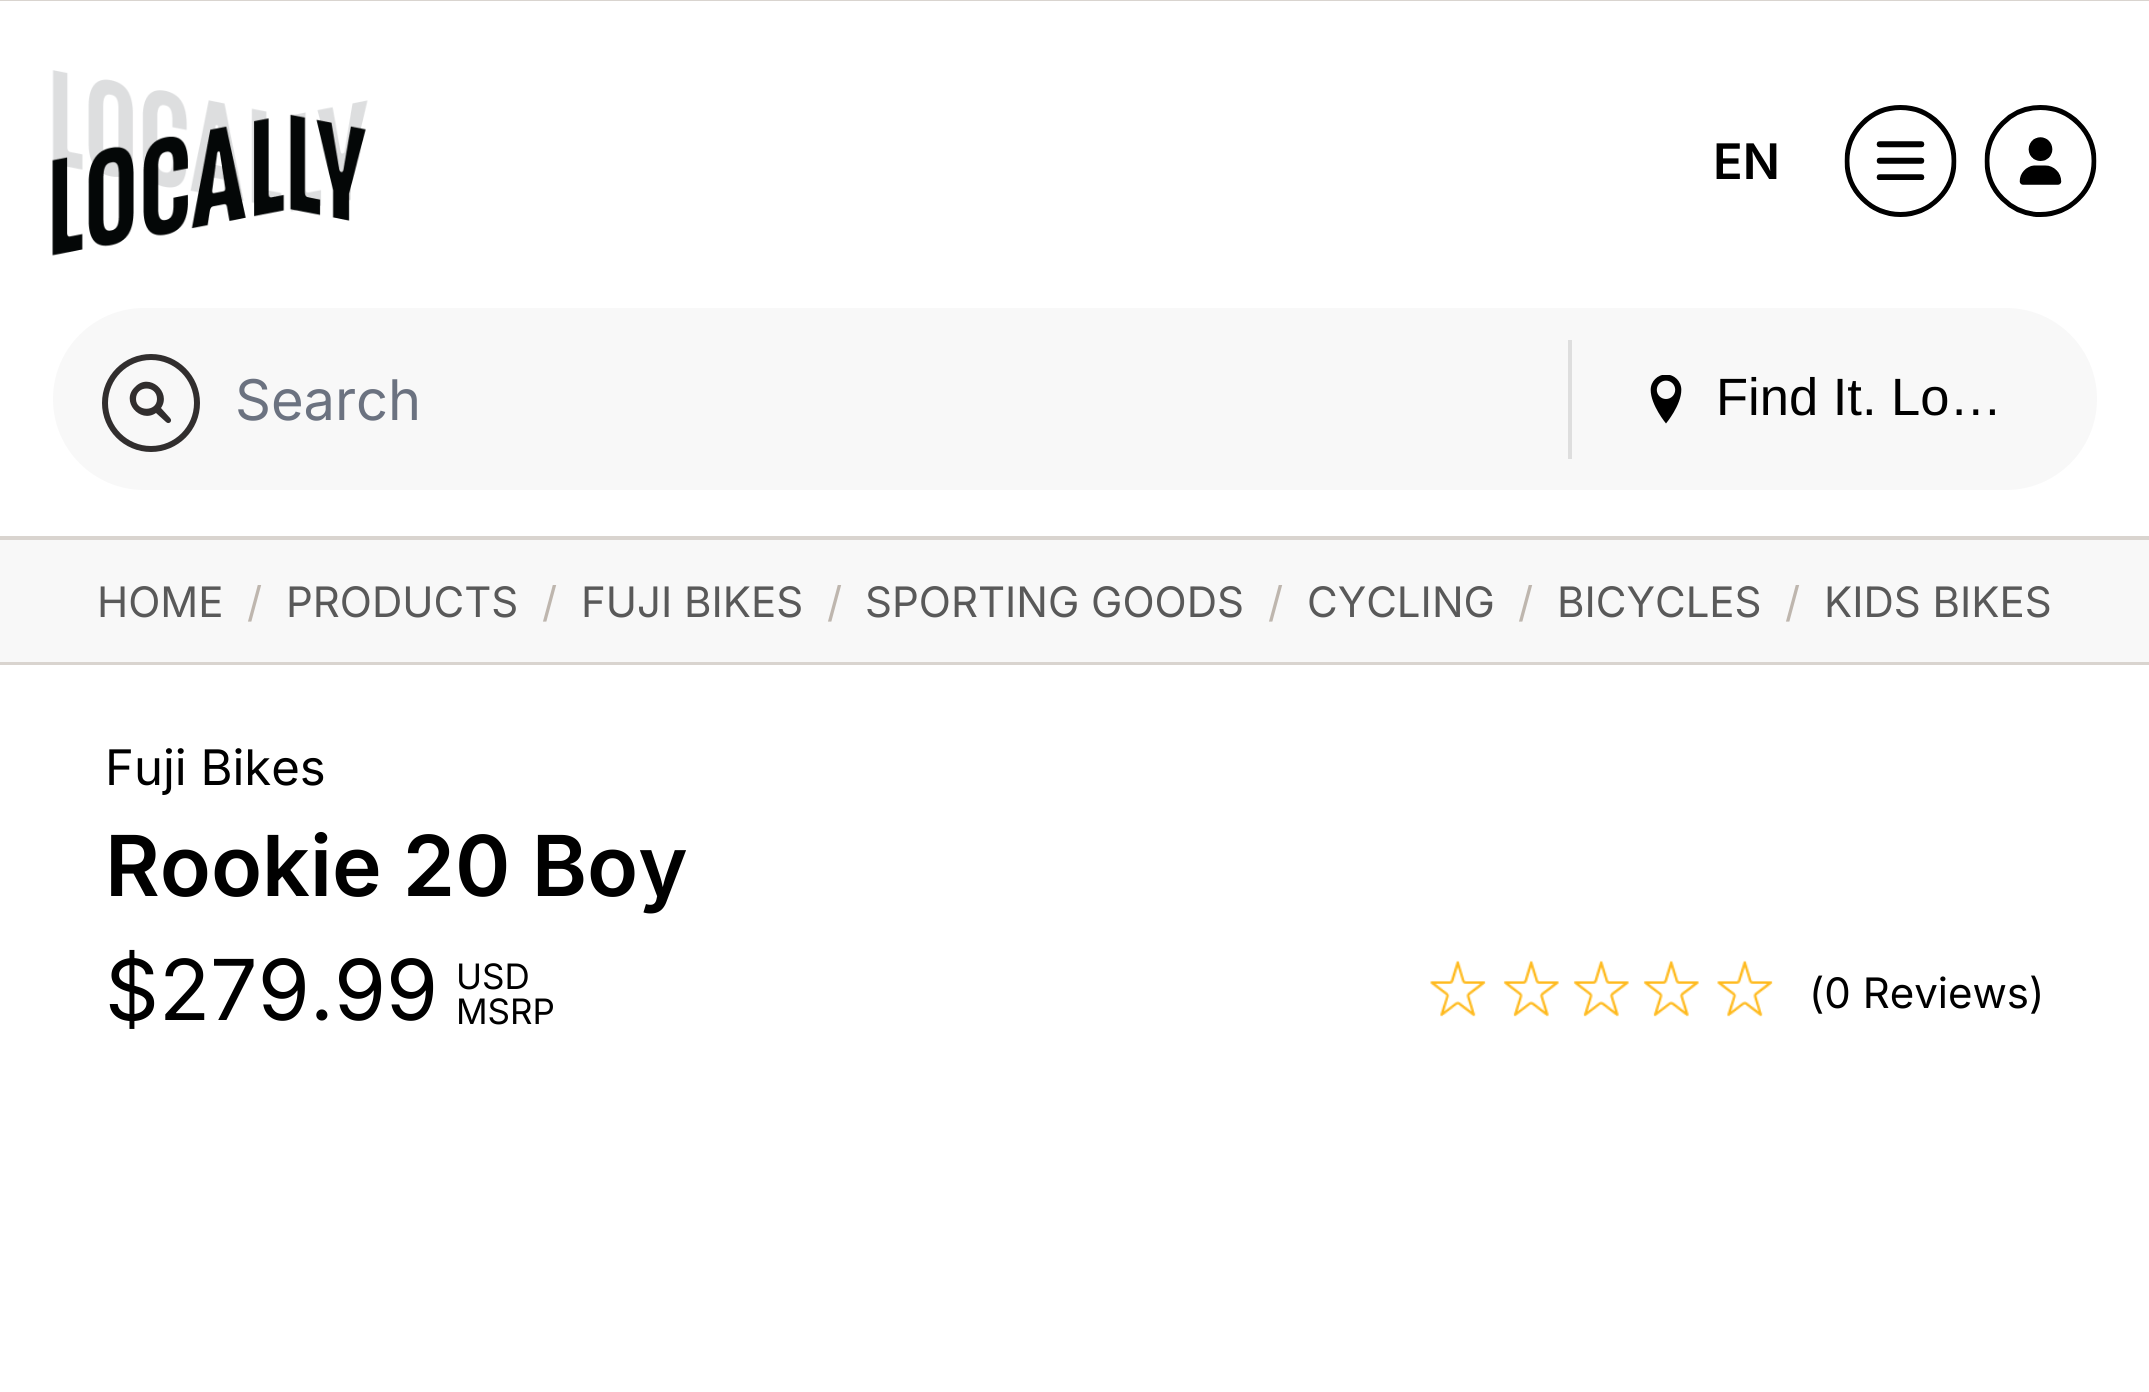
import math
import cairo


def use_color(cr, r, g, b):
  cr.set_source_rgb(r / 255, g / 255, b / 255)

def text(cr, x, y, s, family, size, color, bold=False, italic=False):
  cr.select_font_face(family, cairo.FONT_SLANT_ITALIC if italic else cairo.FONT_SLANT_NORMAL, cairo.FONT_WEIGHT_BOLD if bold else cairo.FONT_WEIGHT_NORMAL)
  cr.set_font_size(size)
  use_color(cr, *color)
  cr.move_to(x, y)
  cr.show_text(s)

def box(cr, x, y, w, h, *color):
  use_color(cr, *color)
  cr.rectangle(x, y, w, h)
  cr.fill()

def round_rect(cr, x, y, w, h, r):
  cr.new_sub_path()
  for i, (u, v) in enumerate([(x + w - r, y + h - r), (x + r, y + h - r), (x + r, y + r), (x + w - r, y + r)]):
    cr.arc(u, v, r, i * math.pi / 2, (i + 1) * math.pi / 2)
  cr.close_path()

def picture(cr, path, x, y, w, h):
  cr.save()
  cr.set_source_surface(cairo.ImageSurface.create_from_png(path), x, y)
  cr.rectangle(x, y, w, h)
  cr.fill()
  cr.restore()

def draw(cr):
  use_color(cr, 255, 255, 255)
  cr.paint()
  box(cr, 0, 536, 2149, 4, 217, 212, 207)
  picture(cr, "img_01.png", 52, 70, 316, 186)
  picture(cr, "img_02.png", 1844, 105, 113, 112)
  picture(cr, "img_03.png", 1984, 105, 113, 112)
  use_color(cr, 248, 248, 248)
  round_rect(cr, 53, 308, 2044, 182, 91)
  cr.fill()
  cr.arc(151, 403, 46, 0, 2 * math.pi)
  use_color(cr, 49, 46, 46)
  cr.set_line_width(6)
  cr.stroke()
  cr.set_fill_rule(cairo.FILL_RULE_EVEN_ODD)
  cr.new_path()
  cr.move_to(170, 418)
  cr.line_to(161, 408)
  cr.curve_to(172, 392, 149, 372, 135, 387)
  cr.curve_to(120, 401, 140, 424, 156, 413)
  cr.line_to(166, 422)
  cr.curve_to(169, 425, 173, 421, 170, 418)
  cr.close_path()
  cr.move_to(136, 399)
  cr.curve_to(136, 385, 157, 385, 157, 399)
  cr.curve_to(157, 412, 136, 412, 136, 399)
  cr.close_path()
  cr.fill()
  box(cr, 1568, 340, 4, 119, 222, 222, 222)
  box(cr, 0, 0, 2149, 1, 217, 212, 207)
  picture(cr, "img_04.png", 1650, 375, 32, 49)
  box(cr, 0, 540, 2149, 122, 248, 248, 248)
  box(cr, 0, 662, 2149, 3, 217, 212, 207)
  picture(cr, "img_05.png", 1430, 960, 56, 57)
  picture(cr, "img_06.png", 1503, 960, 56, 57)
  picture(cr, "img_06.png", 1573, 960, 56, 57)
  picture(cr, "img_06.png", 1643, 960, 56, 57)
  picture(cr, "img_05.png", 1717, 960, 56, 57)
  text(cr, 1713, 179, "EN", "Inter SemiBold", 49, (0, 0, 0))
  text(cr, 235, 420, "Search", "Inter", 56, (107, 114, 128))
  text(cr, 1716, 415, "Find It. Lo…", "Liberation Sans", 52.5, (0, 0, 0))
  text(cr, 97, 617, "HOME", "Inter", 42, (89, 89, 89))
  text(cr, 247, 617, "/", "Inter", 42, (190, 182, 174))
  text(cr, 286, 617, "PRODUCTS", "Inter", 42, (89, 89, 89))
  text(cr, 542, 617, "/", "Inter", 42, (190, 182, 174))
  text(cr, 581, 617, "FUJI BIKES", "Inter", 42, (89, 89, 89))
  text(cr, 827, 617, "/", "Inter", 42, (190, 182, 174))
  text(cr, 865, 617, "SPORTING GOODS", "Inter", 42, (89, 89, 89))
  text(cr, 1268, 617, "/", "Inter", 42, (190, 182, 174))
  text(cr, 1307, 617, "CYCLING", "Inter", 42, (89, 89, 89))
  text(cr, 1518, 617, "/", "Inter", 42, (190, 182, 174))
  text(cr, 1557, 617, "BICYCLES", "Inter", 42, (89, 89, 89))
  text(cr, 1785, 617, "/", "Inter", 42, (190, 182, 174))
  text(cr, 1824, 617, "KIDS BIKES", "Inter", 42, (89, 89, 89))
  text(cr, 105, 785, "Fuji Bikes", "Inter", 49, (0, 0, 0))
  text(cr, 105, 896, "Rookie 20 Boy", "Inter SemiBold", 84, (0, 0, 0))
  text(cr, 105, 1020, "$279.99", "Inter", 84, (0, 0, 0))
  text(cr, 456, 989, "USD", "Inter", 35, (0, 0, 0))
  text(cr, 456, 1024, "MSRP", "Inter", 35, (0, 0, 0))
  text(cr, 1809, 1008, "(0 Reviews)", "Inter", 42, (0, 0, 0))


surface = cairo.ImageSurface(cairo.FORMAT_RGB24, 2149, 1392)
cr = cairo.Context(surface)
options = cairo.FontOptions()
options.set_hint_metrics(cairo.HINT_METRICS_OFF)
options.set_hint_style(cairo.HINT_STYLE_NONE)
cr.set_font_options(options)
cr.set_miter_limit(4)
draw(cr)
surface.write_to_png("out.png")
